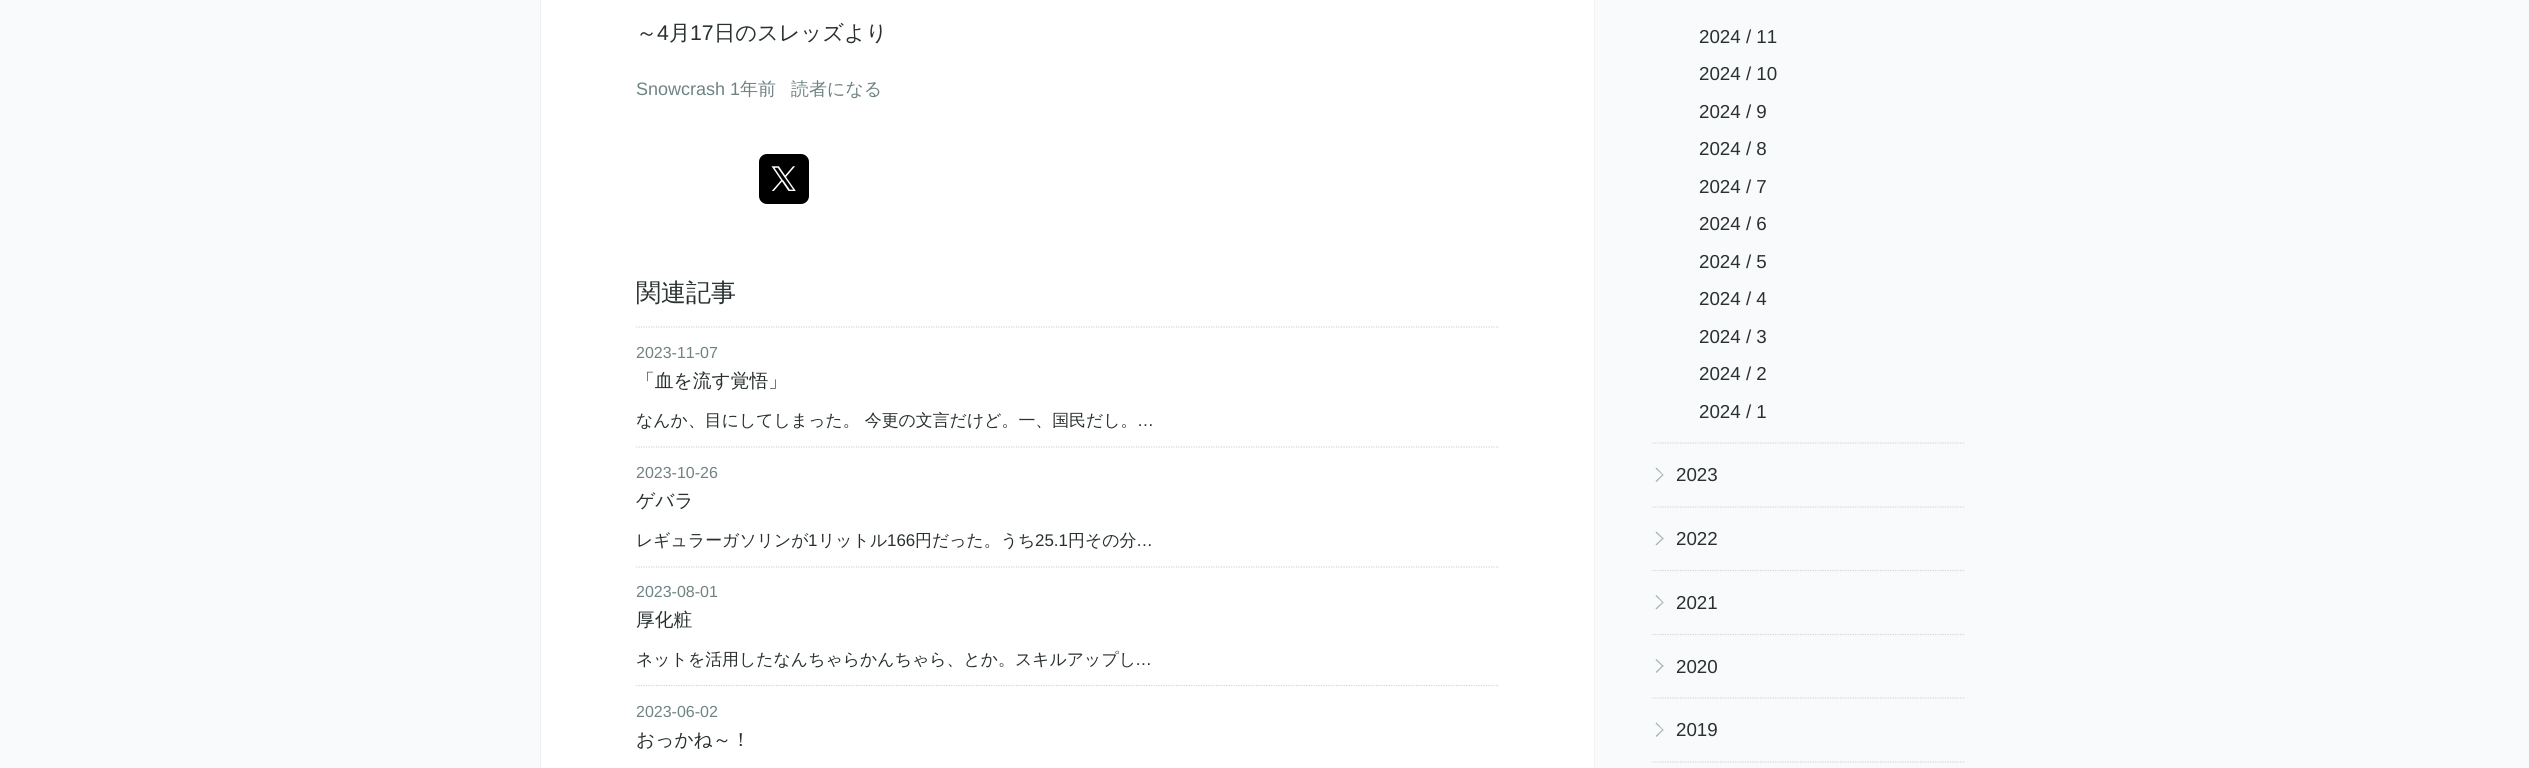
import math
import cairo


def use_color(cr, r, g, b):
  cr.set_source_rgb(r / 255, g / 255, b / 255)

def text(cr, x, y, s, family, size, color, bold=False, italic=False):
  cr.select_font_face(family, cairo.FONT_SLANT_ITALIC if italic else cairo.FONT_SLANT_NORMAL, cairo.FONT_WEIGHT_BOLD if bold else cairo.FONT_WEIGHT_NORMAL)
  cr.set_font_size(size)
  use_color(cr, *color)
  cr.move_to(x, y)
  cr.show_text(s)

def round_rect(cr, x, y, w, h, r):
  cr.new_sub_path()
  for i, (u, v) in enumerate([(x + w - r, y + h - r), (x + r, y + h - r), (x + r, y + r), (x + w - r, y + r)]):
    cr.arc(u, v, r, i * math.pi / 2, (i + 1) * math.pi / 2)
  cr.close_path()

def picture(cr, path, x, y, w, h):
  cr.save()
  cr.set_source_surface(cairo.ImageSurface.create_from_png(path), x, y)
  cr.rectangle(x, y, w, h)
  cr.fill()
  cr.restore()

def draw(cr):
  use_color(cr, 249, 250, 251)
  cr.paint()
  use_color(cr, 255, 255, 255)
  cr.rectangle(540.5, -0.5, 1054, 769)
  cr.fill_preserve()
  use_color(cr, 240, 241, 241)
  cr.set_line_width(1)
  cr.stroke()
  use_color(cr, 0, 0, 0)
  round_rect(cr, 759, 154, 50, 50, 8)
  cr.fill()
  picture(cr, "img_01.png", 771, 166, 25, 25)
  cr.new_path()
  cr.move_to(636, 327)
  cr.line_to(1499, 327)
  use_color(cr, 207, 216, 216)
  cr.set_line_width(1.2)
  cr.set_dash([1.25, 1.25])
  cr.stroke()
  cr.new_path()
  cr.move_to(636, 447)
  cr.line_to(1499, 447)
  cr.stroke()
  cr.new_path()
  cr.move_to(636, 567)
  cr.line_to(1499, 567)
  cr.stroke()
  cr.new_path()
  cr.move_to(636, 685.5)
  cr.line_to(1499, 685.5)
  cr.stroke()
  cr.new_path()
  cr.move_to(1652.5, 443)
  cr.line_to(1965, 443)
  cr.stroke()
  use_color(cr, 166, 179, 179)
  cr.new_path()
  cr.move_to(1656.5, 467.5)
  cr.line_to(1663.5, 475)
  cr.line_to(1663, 475.5)
  cr.line_to(1655.5, 468.5)
  cr.close_path()
  cr.fill()
  cr.new_path()
  cr.move_to(1663, 474)
  cr.line_to(1663.5, 475)
  cr.line_to(1656.5, 482)
  cr.line_to(1655.5, 481)
  cr.close_path()
  cr.fill()
  cr.new_path()
  cr.move_to(1652.5, 507)
  cr.line_to(1965, 507)
  use_color(cr, 207, 216, 216)
  cr.stroke()
  use_color(cr, 166, 179, 179)
  cr.new_path()
  cr.move_to(1656.5, 531.5)
  cr.line_to(1663.5, 538.5)
  cr.line_to(1663, 539.5)
  cr.line_to(1655.5, 532.5)
  cr.close_path()
  cr.fill()
  cr.new_path()
  cr.move_to(1663, 537.5)
  cr.line_to(1663.5, 538.5)
  cr.line_to(1656.5, 545.5)
  cr.line_to(1655.5, 544.5)
  cr.close_path()
  cr.fill()
  cr.new_path()
  cr.move_to(1652.5, 570.5)
  cr.line_to(1965, 570.5)
  use_color(cr, 207, 216, 216)
  cr.stroke()
  use_color(cr, 166, 179, 179)
  cr.new_path()
  cr.move_to(1656.5, 595)
  cr.line_to(1663.5, 602.5)
  cr.line_to(1663, 603)
  cr.line_to(1655.5, 596)
  cr.close_path()
  cr.fill()
  cr.new_path()
  cr.move_to(1663, 601.5)
  cr.line_to(1663.5, 602.5)
  cr.line_to(1656.5, 609.5)
  cr.line_to(1655.5, 608.5)
  cr.close_path()
  cr.fill()
  cr.new_path()
  cr.move_to(1652.5, 634.5)
  cr.line_to(1965, 634.5)
  use_color(cr, 207, 216, 216)
  cr.stroke()
  use_color(cr, 166, 179, 179)
  cr.new_path()
  cr.move_to(1656.5, 659)
  cr.line_to(1663.5, 666)
  cr.line_to(1663, 667)
  cr.line_to(1655.5, 660)
  cr.close_path()
  cr.fill()
  cr.new_path()
  cr.move_to(1663, 665)
  cr.line_to(1663.5, 666)
  cr.line_to(1656.5, 673)
  cr.line_to(1655.5, 672)
  cr.close_path()
  cr.fill()
  cr.new_path()
  cr.move_to(1652.5, 698)
  cr.line_to(1965, 698)
  use_color(cr, 207, 216, 216)
  cr.stroke()
  use_color(cr, 166, 179, 179)
  cr.new_path()
  cr.move_to(1656.5, 722.5)
  cr.line_to(1663.5, 730)
  cr.line_to(1663, 730.5)
  cr.line_to(1655.5, 723.5)
  cr.close_path()
  cr.fill()
  cr.new_path()
  cr.move_to(1663, 729)
  cr.line_to(1663.5, 730)
  cr.line_to(1656.5, 737)
  cr.line_to(1655.5, 736)
  cr.close_path()
  cr.fill()
  cr.new_path()
  cr.move_to(1652.5, 762)
  cr.line_to(1965, 762)
  use_color(cr, 207, 216, 216)
  cr.stroke()
  text(cr, 636, 40, "～", "WenQuanYi Zen Hei Medium", 21.25, (41, 48, 48))
  text(cr, 657, 40, "4", "Liberation Sans", 21.25, (41, 48, 48))
  text(cr, 669, 40, "月", "WenQuanYi Zen Hei Medium", 21.25, (41, 48, 48))
  text(cr, 690, 40, "17", "Liberation Sans", 21.25, (41, 48, 48))
  text(cr, 714, 40, "日のスレッズより", "WenQuanYi Zen Hei Medium", 21.25, (41, 48, 48))
  text(cr, 636, 95, "Snowcrash 1", "Liberation Sans", 18, (111, 131, 131))
  text(cr, 740, 95, "年前", "WenQuanYi Zen Hei Medium", 18, (111, 131, 131))
  text(cr, 791, 95, "読者になる", "WenQuanYi Zen Hei Medium", 18, (111, 131, 131))
  text(cr, 636, 301, "関連記事", "WenQuanYi Zen Hei Medium", 25, (41, 48, 48))
  text(cr, 636, 358, "2023-11-07", "Liberation Sans", 16, (111, 131, 131))
  text(cr, 636, 387, "「血を流す覚悟」", "WenQuanYi Zen Hei Medium", 18.75, (41, 48, 48))
  text(cr, 636, 426, "なんか、目にしてしまった。 今更の文言だけど。一、国民だし。", "WenQuanYi Zen Hei Medium", 16.9, (41, 48, 48))
  text(cr, 1137, 426, "…", "Liberation Sans", 16.9, (41, 48, 48))
  text(cr, 636, 478, "2023-10-26", "Liberation Sans", 16, (111, 131, 131))
  text(cr, 636, 507, "ゲバラ", "WenQuanYi Zen Hei Medium", 18.75, (41, 48, 48))
  text(cr, 636, 546, "レギュラーガソリンが", "WenQuanYi Zen Hei Medium", 16.9, (41, 48, 48))
  text(cr, 808, 546, "1", "Liberation Sans", 16.9, (41, 48, 48))
  text(cr, 818, 546, "リットル", "WenQuanYi Zen Hei Medium", 16.9, (41, 48, 48))
  text(cr, 887, 546, "166", "Liberation Sans", 16.9, (41, 48, 48))
  text(cr, 915, 546, "円だった。うち", "WenQuanYi Zen Hei Medium", 16.9, (41, 48, 48))
  text(cr, 1035, 546, "25.1", "Liberation Sans", 16.9, (41, 48, 48))
  text(cr, 1068, 546, "円その分", "WenQuanYi Zen Hei Medium", 16.9, (41, 48, 48))
  text(cr, 1136, 546, "…", "Liberation Sans", 16.9, (41, 48, 48))
  text(cr, 636, 597, "2023-08-01", "Liberation Sans", 16, (111, 131, 131))
  text(cr, 636, 626, "厚化粧", "WenQuanYi Zen Hei Medium", 18.75, (41, 48, 48))
  text(cr, 636, 665, "ネットを活用したなんちゃらかんちゃら、とか。スキルアップし", "WenQuanYi Zen Hei Medium", 16.9, (41, 48, 48))
  text(cr, 1135, 665, "…", "Liberation Sans", 16.9, (41, 48, 48))
  text(cr, 636, 717, "2023-06-02", "Liberation Sans", 16, (111, 131, 131))
  text(cr, 636, 746, "おっかね～！", "WenQuanYi Zen Hei Medium", 18.75, (41, 48, 48))
  text(cr, 1699, 43, "2024 / 11", "Liberation Sans", 18.75, (41, 48, 48))
  text(cr, 1699, 80, "2024 / 10", "Liberation Sans", 18.75, (41, 48, 48))
  text(cr, 1699, 118, "2024 / 9", "Liberation Sans", 18.75, (41, 48, 48))
  text(cr, 1699, 155, "2024 / 8", "Liberation Sans", 18.75, (41, 48, 48))
  text(cr, 1699, 193, "2024 / 7", "Liberation Sans", 18.75, (41, 48, 48))
  text(cr, 1699, 230, "2024 / 6", "Liberation Sans", 18.75, (41, 48, 48))
  text(cr, 1699, 268, "2024 / 5", "Liberation Sans", 18.75, (41, 48, 48))
  text(cr, 1699, 305, "2024 / 4", "Liberation Sans", 18.75, (41, 48, 48))
  text(cr, 1699, 343, "2024 / 3", "Liberation Sans", 18.75, (41, 48, 48))
  text(cr, 1699, 380, "2024 / 2", "Liberation Sans", 18.75, (41, 48, 48))
  text(cr, 1699, 418, "2024 / 1", "Liberation Sans", 18.75, (41, 48, 48))
  text(cr, 1676, 481, "2023", "Liberation Sans", 18.75, (41, 48, 48))
  text(cr, 1676, 545, "2022", "Liberation Sans", 18.75, (41, 48, 48))
  text(cr, 1676, 609, "2021", "Liberation Sans", 18.75, (41, 48, 48))
  text(cr, 1676, 673, "2020", "Liberation Sans", 18.75, (41, 48, 48))
  text(cr, 1676, 736, "2019", "Liberation Sans", 18.75, (41, 48, 48))


surface = cairo.ImageSurface(cairo.FORMAT_RGB24, 2529, 768)
cr = cairo.Context(surface)
options = cairo.FontOptions()
options.set_hint_metrics(cairo.HINT_METRICS_OFF)
options.set_hint_style(cairo.HINT_STYLE_NONE)
cr.set_font_options(options)
cr.set_miter_limit(4)
draw(cr)
surface.write_to_png("out.png")
